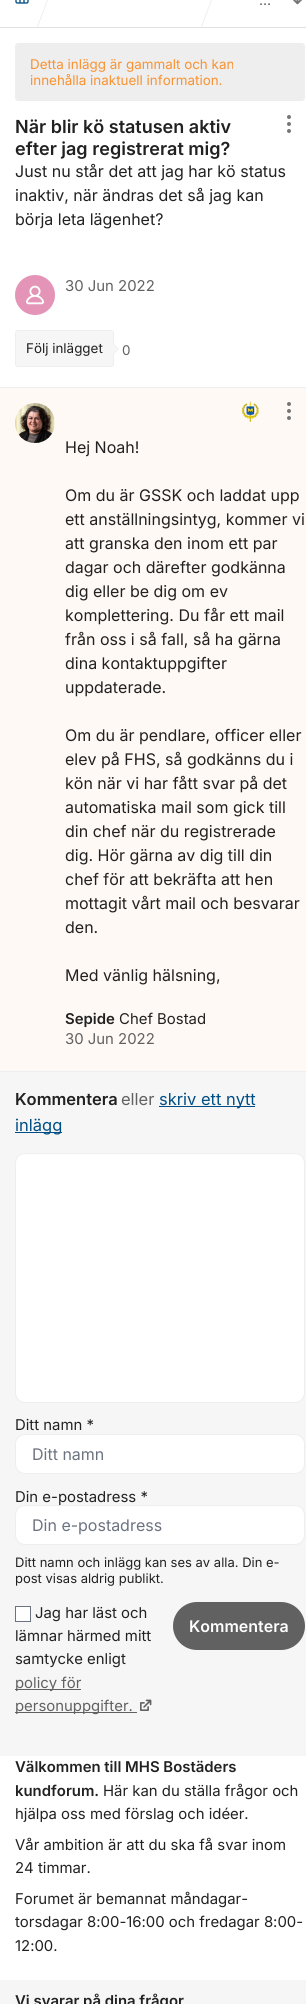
import math
import cairo


def use_color(cr, r, g, b):
  cr.set_source_rgb(r / 255, g / 255, b / 255)

def text(cr, x, y, s, family, size, color, bold=False, italic=False):
  cr.select_font_face(family, cairo.FONT_SLANT_ITALIC if italic else cairo.FONT_SLANT_NORMAL, cairo.FONT_WEIGHT_BOLD if bold else cairo.FONT_WEIGHT_NORMAL)
  cr.set_font_size(size)
  use_color(cr, *color)
  cr.move_to(x, y)
  cr.show_text(s)

def box(cr, x, y, w, h, *color):
  use_color(cr, *color)
  cr.rectangle(x, y, w, h)
  cr.fill()

def round_rect(cr, x, y, w, h, r):
  cr.new_sub_path()
  for i, (u, v) in enumerate([(x + w - r, y + h - r), (x + r, y + h - r), (x + r, y + r), (x + w - r, y + r)]):
    cr.arc(u, v, r, i * math.pi / 2, (i + 1) * math.pi / 2)
  cr.close_path()

def picture(cr, path, x, y, w, h):
  cr.save()
  cr.set_source_surface(cairo.ImageSurface.create_from_png(path), x, y)
  cr.rectangle(x, y, w, h)
  cr.fill()
  cr.restore()

def draw(cr):
  use_color(cr, 255, 255, 255)
  cr.paint()
  box(cr, 0, 27, 306, 1, 224, 224, 224)
  picture(cr, "img_01.png", 15, 0, 14, 4)
  cr.save()
  cr.rectangle(0, 0, 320, 27)
  cr.clip()
  use_color(cr, 238, 238, 238)
  cr.new_path()
  cr.move_to(33, 40)
  cr.line_to(33, -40)
  cr.line_to(48, 0)
  cr.close_path()
  cr.fill()
  use_color(cr, 255, 255, 255)
  cr.new_path()
  cr.move_to(32, 40)
  cr.line_to(32, -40)
  cr.line_to(47, 0)
  cr.close_path()
  cr.fill()
  use_color(cr, 238, 238, 238)
  cr.new_path()
  cr.move_to(197, 40)
  cr.line_to(197, -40)
  cr.line_to(212, 0)
  cr.close_path()
  cr.fill()
  use_color(cr, 255, 255, 255)
  cr.new_path()
  cr.move_to(196, 40)
  cr.line_to(196, -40)
  cr.line_to(211, 0)
  cr.close_path()
  cr.fill()
  cr.restore()
  picture(cr, "img_02.png", 293, 0, 9, 5)
  use_color(cr, 238, 238, 238)
  round_rect(cr, 15, 43, 290, 58, 3)
  cr.fill()
  picture(cr, "img_03.png", 287, 115, 4, 18)
  use_color(cr, 228, 149, 183)
  cr.arc(35, 295, 20, 0, 2 * math.pi)
  cr.fill()
  picture(cr, "img_04.png", 26, 285, 18, 20)
  use_color(cr, 246, 246, 246)
  round_rect(cr, 15.5, 330.5, 98, 36, 2.5)
  cr.fill_preserve()
  use_color(cr, 238, 238, 238)
  cr.set_line_width(1)
  cr.stroke()
  cr.new_path()
  cr.move_to(113, 355)
  cr.line_to(113, 343)
  cr.line_to(119, 349)
  cr.close_path()
  cr.fill()
  use_color(cr, 246, 246, 246)
  cr.new_path()
  cr.move_to(112, 355)
  cr.line_to(112, 343)
  cr.line_to(118, 349)
  cr.close_path()
  cr.fill()
  box(cr, 0, 388, 306, 683, 255, 249, 245)
  box(cr, 0, 387, 306, 1, 238, 238, 238)
  picture(cr, "img_05.png", 241, 401, 18, 21)
  picture(cr, "img_06.png", 15, 403, 40, 40)
  picture(cr, "img_07.png", 287, 402, 4, 18)
  box(cr, 0, 1072, 306, 684, 246, 246, 246)
  box(cr, 0, 1071, 306, 1, 238, 238, 238)
  box(cr, 159, 1106, 96, 1, 1, 78, 132)
  box(cr, 15, 1132, 47, 1, 1, 78, 132)
  use_color(cr, 255, 255, 255)
  round_rect(cr, 15.5, 1153.5, 289, 249, 9.5)
  cr.fill_preserve()
  use_color(cr, 238, 238, 238)
  cr.stroke()
  use_color(cr, 255, 255, 255)
  round_rect(cr, 15.5, 1434.5, 289, 39, 9.5)
  cr.fill_preserve()
  use_color(cr, 238, 238, 238)
  cr.stroke()
  use_color(cr, 255, 255, 255)
  round_rect(cr, 15.5, 1505.5, 289, 39, 9.5)
  cr.fill_preserve()
  use_color(cr, 238, 238, 238)
  cr.stroke()
  use_color(cr, 255, 255, 255)
  cr.rectangle(15.5, 1606.5, 15, 15)
  cr.fill_preserve()
  use_color(cr, 107, 114, 128)
  cr.stroke()
  box(cr, 15, 1689, 66, 1, 97, 97, 97)
  box(cr, 15, 1712, 122, 1, 97, 97, 97)
  picture(cr, "img_08.png", 140, 1699, 12, 12)
  round_rect(cr, 173, 1602, 132, 48, 24)
  cr.fill()
  box(cr, 0, 1980, 306, 24, 246, 246, 246)
  text(cr, 259, 5, "…", "Inter", 14, (97, 97, 97))
  text(cr, 30, 69, "Detta inlägg är gammalt och kan", "Inter", 13.4, (248, 146, 48))
  text(cr, 30, 85, "innehålla inaktuell information.", "Inter", 13.4, (248, 146, 48))
  text(cr, 15, 133, "När blir kö statusen aktiv", "Inter SemiBold", 18, (33, 33, 33))
  text(cr, 15, 155, "efter jag registrerat mig?", "Inter SemiBold", 18, (33, 33, 33))
  text(cr, 15, 177, "Just nu står det att jag har kö status", "Inter", 16, (33, 33, 33))
  text(cr, 15, 201, "inaktiv, när ändras det så jag kan", "Inter", 16, (33, 33, 33))
  text(cr, 15, 225, "börja leta lägenhet?", "Inter", 16, (33, 33, 33))
  text(cr, 65, 291, "30 Jun 2022", "Inter", 14.9, (97, 97, 97))
  text(cr, 26, 353, "Följ inlägget", "Inter", 13.4, (33, 33, 33))
  text(cr, 122, 355, "0", "Inter", 13.4, (97, 97, 97))
  text(cr, 65, 453, "Hej Noah!", "Inter", 16, (33, 33, 33))
  text(cr, 65, 501, "Om du är GSSK och laddat upp", "Inter", 16, (33, 33, 33))
  text(cr, 65, 525, "ett anställningsintyg, kommer vi", "Inter", 16, (33, 33, 33))
  text(cr, 65, 549, "att granska den inom ett par", "Inter", 16, (33, 33, 33))
  text(cr, 65, 573, "dagar och därefter godkänna", "Inter", 16, (33, 33, 33))
  text(cr, 65, 597, "dig eller be dig om ev", "Inter", 16, (33, 33, 33))
  text(cr, 65, 621, "komplettering. Du får ett mail", "Inter", 16, (33, 33, 33))
  text(cr, 65, 645, "från oss i så fall, så ha gärna", "Inter", 16, (33, 33, 33))
  text(cr, 65, 669, "dina kontaktuppgifter", "Inter", 16, (33, 33, 33))
  text(cr, 65, 693, "uppdaterade.", "Inter", 16, (33, 33, 33))
  text(cr, 65, 741, "Om du är pendlare, officer eller", "Inter", 16, (33, 33, 33))
  text(cr, 65, 765, "elev på FHS, så godkänns du i", "Inter", 16, (33, 33, 33))
  text(cr, 65, 789, "kön när vi har fått svar på det", "Inter", 16, (33, 33, 33))
  text(cr, 65, 813, "automatiska mail som gick till", "Inter", 16, (33, 33, 33))
  text(cr, 65, 837, "din chef när du registrerade", "Inter", 16, (33, 33, 33))
  text(cr, 65, 861, "dig. Hör gärna av dig till din", "Inter", 16, (33, 33, 33))
  text(cr, 65, 885, "chef för att bekräfta att hen", "Inter", 16, (33, 33, 33))
  text(cr, 65, 909, "mottagit vårt mail och besvarar", "Inter", 16, (33, 33, 33))
  text(cr, 65, 933, "den.", "Inter", 16, (33, 33, 33))
  text(cr, 65, 981, "Med vänlig hälsning,", "Inter", 16, (33, 33, 33))
  text(cr, 65, 1024, "Sepide", "Inter SemiBold", 14.9, (33, 33, 33))
  text(cr, 119, 1024, "Chef Bostad", "Inter", 14.9, (33, 33, 33))
  text(cr, 65, 1044, "30 Jun 2022", "Inter", 14.9, (97, 97, 97))
  text(cr, 15, 1105, "Kommentera", "Inter SemiBold", 16.5, (33, 33, 33))
  text(cr, 121, 1105, "eller", "Inter", 16.5, (97, 97, 97))
  text(cr, 159, 1105, "skriv ett nytt", "Inter", 16.5, (1, 78, 132))
  text(cr, 15, 1131, "inlägg", "Inter", 16.5, (1, 78, 132))
  text(cr, 15, 1430, "Ditt namn *", "Inter", 14.9, (33, 33, 33))
  text(cr, 32, 1460, "Ditt namn", "Inter", 16, (107, 114, 128))
  text(cr, 15, 1502, "Din e-postadress *", "Inter", 14.9, (33, 33, 33))
  text(cr, 32, 1531, "Din e-postadress", "Inter", 16, (107, 114, 128))
  text(cr, 15, 1567, "Ditt namn och inlägg kan ses av alla. Din e-", "Inter", 13, (33, 33, 33))
  text(cr, 15, 1583, "post visas aldrig publikt.", "Inter", 13, (33, 33, 33))
  text(cr, 35, 1618, "Jag har läst och", "Inter", 14.9, (33, 33, 33))
  text(cr, 15, 1641, "lämnar härmed mitt", "Inter", 14.9, (33, 33, 33))
  text(cr, 15, 1664, "samtycke enligt", "Inter", 14.9, (33, 33, 33))
  text(cr, 15, 1688, "policy för", "Inter", 14.9, (97, 97, 97))
  text(cr, 15, 1711, "personuppgifter.", "Inter", 14.9, (97, 97, 97))
  text(cr, 189, 1632, "Kommentera", "Inter SemiBold", 16, (255, 255, 255))
  text(cr, 15, 1772, "Välkommen till MHS Bostäders", "Inter SemiBold", 14.9, (33, 33, 33))
  text(cr, 15, 1796, "kundforum.", "Inter SemiBold", 14.9, (33, 33, 33))
  text(cr, 103, 1796, "Här kan du ställa frågor och", "Inter", 14.9, (33, 33, 33))
  text(cr, 15, 1819, "hjälpa oss med förslag och idéer.", "Inter", 14.9, (33, 33, 33))
  text(cr, 15, 1850, "Vår ambition är att du ska få svar inom", "Inter", 14.9, (33, 33, 33))
  text(cr, 15, 1873, "24 timmar.", "Inter", 14.9, (33, 33, 33))
  text(cr, 15, 1904, "Forumet är bemannat måndagar-", "Inter", 14.9, (33, 33, 33))
  text(cr, 15, 1927, "torsdagar 8:00-16:00 och fredagar 8:00-", "Inter", 14.9, (33, 33, 33))
  text(cr, 15, 1951, "12:00.", "Inter", 14.9, (33, 33, 33))
  text(cr, 15, 2006, "Vi svarar på dina frågor", "Inter SemiBold", 14.9, (33, 33, 33))


surface = cairo.ImageSurface(cairo.FORMAT_RGB24, 306, 2004)
cr = cairo.Context(surface)
options = cairo.FontOptions()
options.set_hint_metrics(cairo.HINT_METRICS_OFF)
options.set_hint_style(cairo.HINT_STYLE_NONE)
cr.set_font_options(options)
cr.set_miter_limit(4)
draw(cr)
surface.write_to_png("out.png")
